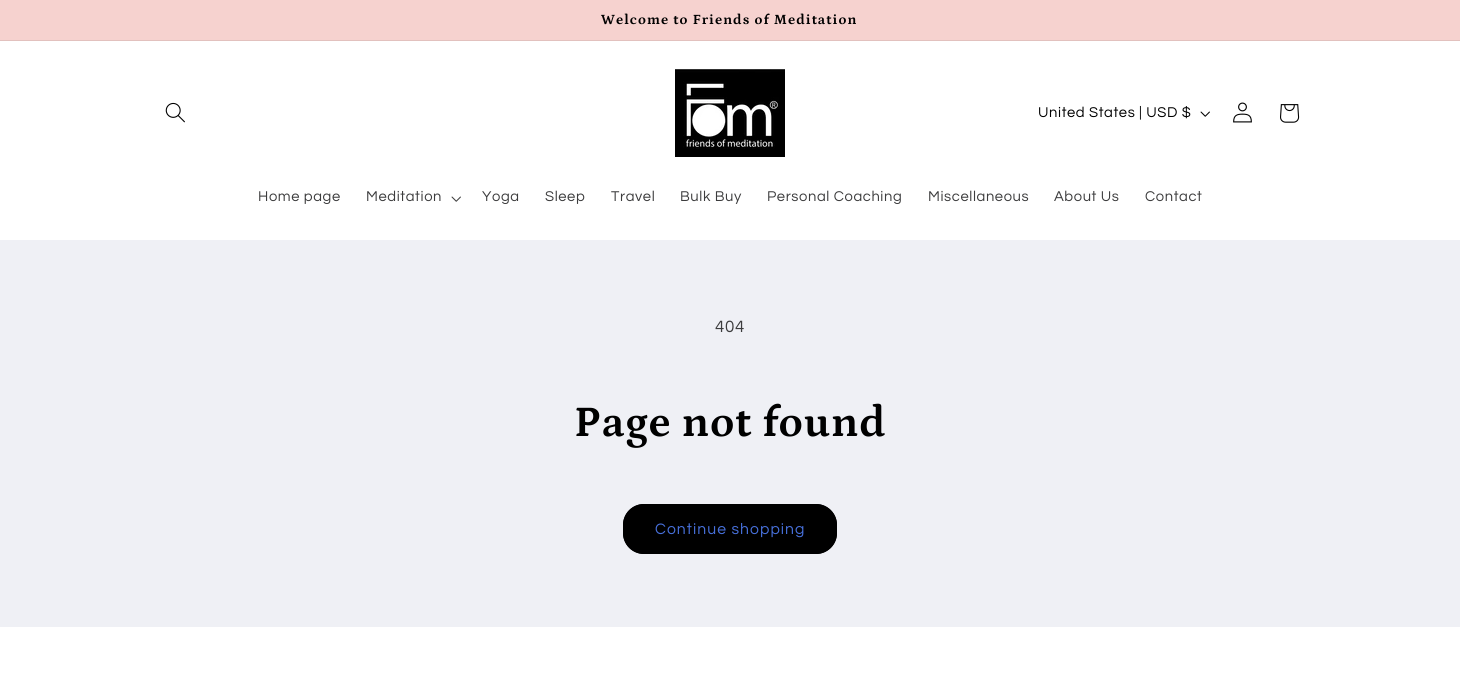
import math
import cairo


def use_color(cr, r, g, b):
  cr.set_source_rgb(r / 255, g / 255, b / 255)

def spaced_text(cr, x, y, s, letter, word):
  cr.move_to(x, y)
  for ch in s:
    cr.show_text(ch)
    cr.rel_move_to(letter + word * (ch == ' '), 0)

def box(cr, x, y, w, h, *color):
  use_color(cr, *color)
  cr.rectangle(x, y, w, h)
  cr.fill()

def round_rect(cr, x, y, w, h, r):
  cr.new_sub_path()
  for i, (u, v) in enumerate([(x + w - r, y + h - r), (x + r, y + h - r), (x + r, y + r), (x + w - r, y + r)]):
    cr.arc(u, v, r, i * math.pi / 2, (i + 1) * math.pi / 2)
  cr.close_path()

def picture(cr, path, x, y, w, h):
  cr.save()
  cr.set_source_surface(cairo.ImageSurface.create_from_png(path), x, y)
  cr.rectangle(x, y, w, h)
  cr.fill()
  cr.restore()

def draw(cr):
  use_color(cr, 239, 240, 245)
  cr.paint()
  box(cr, 0, 0, 1460, 40, 246, 210, 207)
  box(cr, 0, 40, 1460, 1, 226, 193, 190)
  box(cr, 0, 41, 1460, 199, 255, 255, 255)
  picture(cr, "img_01.png", 165, 102, 20, 21)
  picture(cr, "img_02.png", 675, 69, 110, 88)
  picture(cr, "img_03.png", 1200, 111, 10, 6)
  picture(cr, "img_04.png", 1233, 102, 19, 21)
  picture(cr, "img_05.png", 1280, 104, 20, 19)
  picture(cr, "img_06.png", 451, 196, 10, 6)
  use_color(cr, 0, 0, 0)
  round_rect(cr, 623, 504, 214, 50, 21)
  cr.fill()
  round_rect(cr, 623.5, 504.5, 213, 49, 20.5)
  cr.set_line_width(1)
  cr.stroke()
  box(cr, 0, 627, 1460, 73, 255, 255, 255)
  cr.select_font_face("Petrona", cairo.FONT_SLANT_NORMAL, cairo.FONT_WEIGHT_BOLD)
  cr.set_font_size(14.25)
  use_color(cr, 0, 0, 0)
  spaced_text(cr, 601, 24, "Welcome to Friends of Meditation", 1.05, 0)
  cr.select_font_face("Questrial")
  cr.set_font_size(14.75)
  spaced_text(cr, 1038, 117, "United States | USD $", 0.6, 0)
  use_color(cr, 60, 60, 61)
  spaced_text(cr, 258, 201, "Home page", 0.6, 0)
  spaced_text(cr, 366, 201, "Meditation", 0.6, 0)
  spaced_text(cr, 482, 201, "Yoga", 0.6, 0)
  spaced_text(cr, 545, 201, "Sleep", 0.6, 0)
  spaced_text(cr, 611, 201, "Travel", 0.6, 0)
  spaced_text(cr, 680, 201, "Bulk Buy", 0.6, 0)
  spaced_text(cr, 767, 201, "Personal Coaching", 0.6, 0)
  spaced_text(cr, 928, 201, "Miscellaneous", 0.6, 0)
  spaced_text(cr, 1054, 201, "About Us", 0.6, 0)
  spaced_text(cr, 1145, 201, "Contact", 0.6, 0)
  cr.set_font_size(17)
  spaced_text(cr, 715, 332, "404", 0.6, 0)
  cr.select_font_face("Petrona", cairo.FONT_SLANT_NORMAL, cairo.FONT_WEIGHT_BOLD)
  cr.set_font_size(44)
  use_color(cr, 0, 0, 0)
  spaced_text(cr, 574, 436, "Page not found", 0.7, 0)
  cr.select_font_face("Questrial")
  cr.set_font_size(15.75)
  use_color(cr, 71, 112, 219)
  spaced_text(cr, 655, 534, "Continue shopping", 1.05, 0)


surface = cairo.ImageSurface(cairo.FORMAT_RGB24, 1460, 700)
cr = cairo.Context(surface)
options = cairo.FontOptions()
options.set_hint_metrics(cairo.HINT_METRICS_OFF)
options.set_hint_style(cairo.HINT_STYLE_NONE)
cr.set_font_options(options)
cr.set_miter_limit(4)
draw(cr)
surface.write_to_png("out.png")
